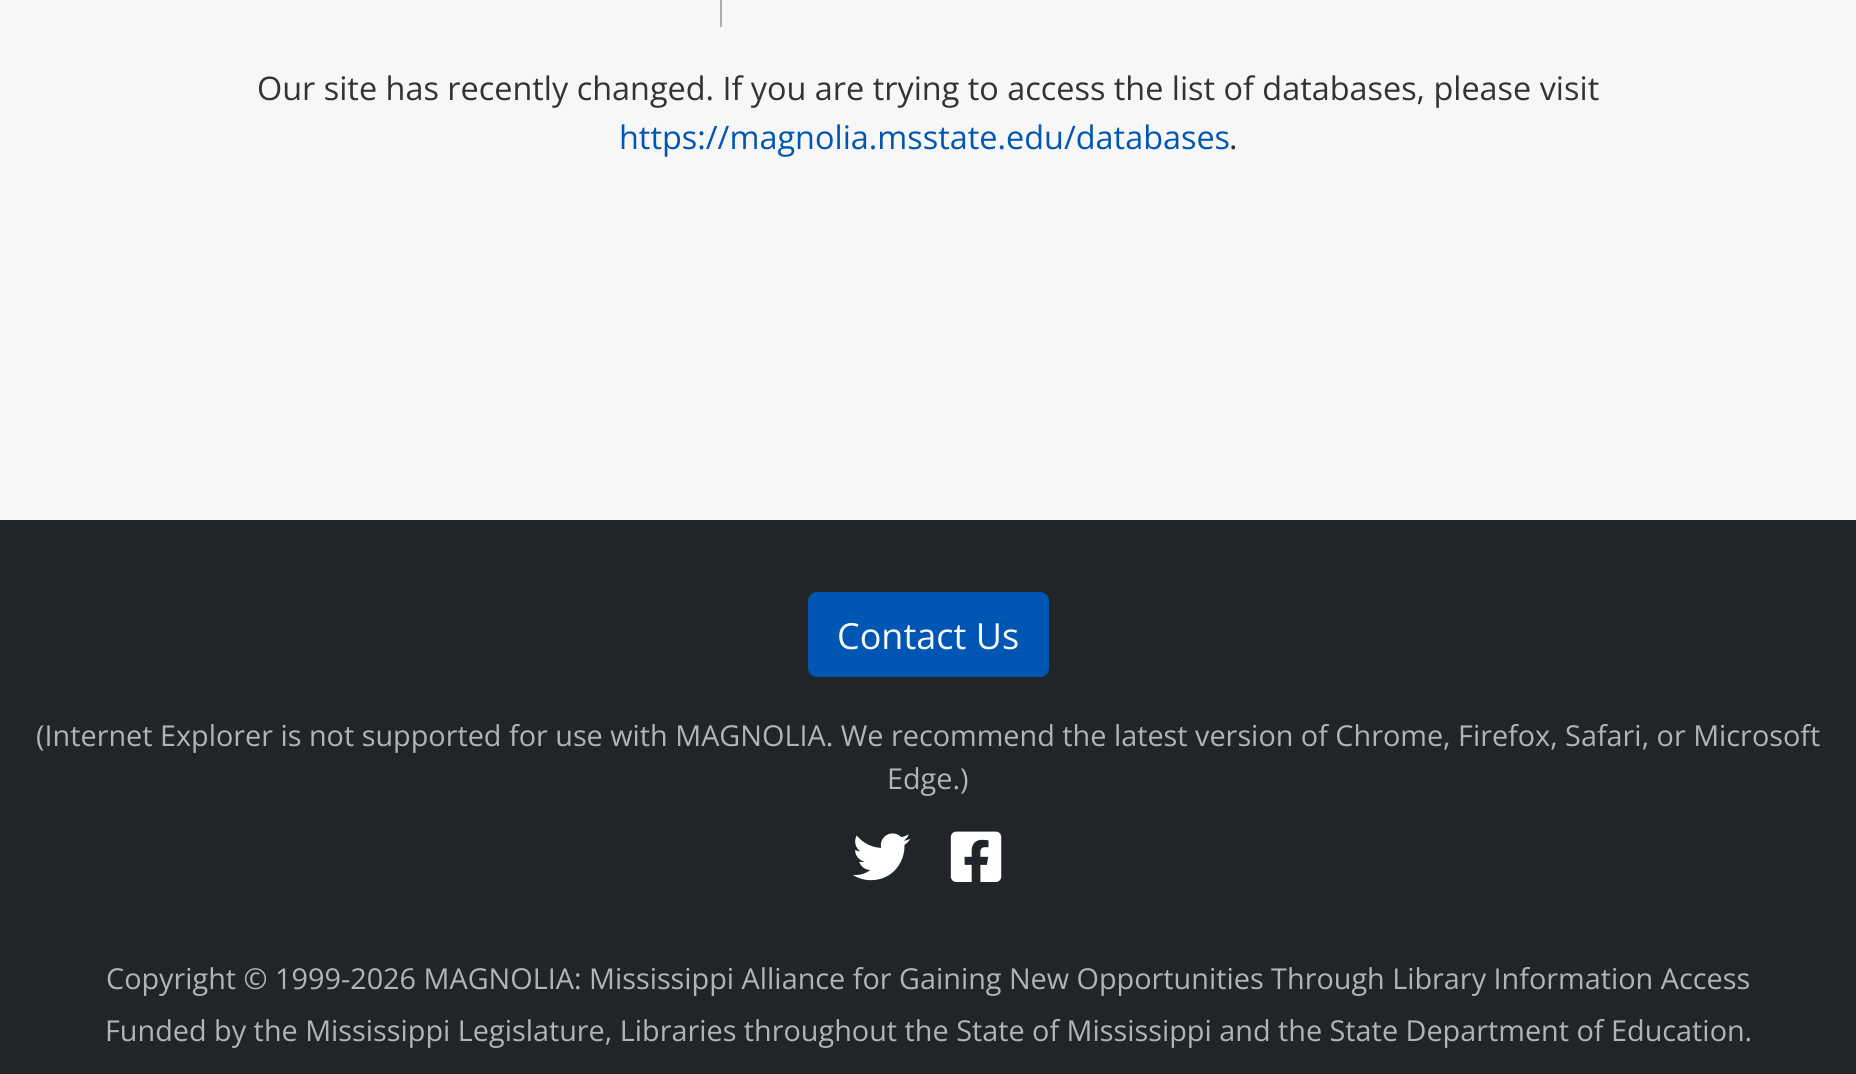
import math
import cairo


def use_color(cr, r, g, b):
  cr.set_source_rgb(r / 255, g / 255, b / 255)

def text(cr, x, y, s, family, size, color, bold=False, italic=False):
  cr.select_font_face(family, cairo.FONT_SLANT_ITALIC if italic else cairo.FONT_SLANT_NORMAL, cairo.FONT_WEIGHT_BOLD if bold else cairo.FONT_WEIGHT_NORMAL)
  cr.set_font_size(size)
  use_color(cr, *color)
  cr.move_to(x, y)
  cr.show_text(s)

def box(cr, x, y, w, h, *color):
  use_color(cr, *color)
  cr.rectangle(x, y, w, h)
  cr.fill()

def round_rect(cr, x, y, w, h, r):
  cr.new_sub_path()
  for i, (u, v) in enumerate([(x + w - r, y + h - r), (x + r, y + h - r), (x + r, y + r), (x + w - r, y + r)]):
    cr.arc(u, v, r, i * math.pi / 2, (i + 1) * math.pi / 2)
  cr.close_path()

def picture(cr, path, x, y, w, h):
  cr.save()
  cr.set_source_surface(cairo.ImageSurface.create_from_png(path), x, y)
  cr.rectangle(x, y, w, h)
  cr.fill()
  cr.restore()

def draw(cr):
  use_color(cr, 247, 247, 247)
  cr.paint()
  box(cr, 720, 0, 2, 27, 173, 173, 173)
  box(cr, 0, 520, 1856, 554, 33, 37, 41)
  use_color(cr, 0, 86, 179)
  round_rect(cr, 809, 593, 239, 83, 8)
  cr.fill_preserve()
  cr.stroke()
  picture(cr, "img_01.png", 853, 833, 58, 48)
  picture(cr, "img_02.png", 950, 831, 52, 51)
  text(cr, 257, 100, "Our site has recently changed. If you are trying to access the list of databases, please visit", "Open Sans", 32.4, (51, 51, 51))
  text(cr, 619, 149, "https://magnolia.msstate.edu/databases", "Open Sans", 32.4, (0, 86, 179))
  text(cr, 1229, 149, ".", "Open Sans", 32.4, (51, 51, 51))
  text(cr, 837, 649, "Contact Us", "Open Sans", 36, (248, 249, 250))
  text(cr, 36, 746, "(Internet Explorer is not supported for use with MAGNOLIA. We recommend the latest version of Chrome, Firefox, Safari, or Microsoft", "Open Sans", 28.8, (179, 179, 179))
  text(cr, 887, 789, "Edge.)", "Open Sans", 28.8, (179, 179, 179))
  text(cr, 106, 989, "Copyright © 1999-2026 MAGNOLIA: Mississippi Alliance for Gaining New Opportunities Through Library Information Access", "Open Sans", 28.8, (179, 179, 179))
  text(cr, 105, 1041, "Funded by the Mississippi Legislature, Libraries throughout the State of Mississippi and the State Department of Education.", "Open Sans", 28.8, (179, 179, 179))


surface = cairo.ImageSurface(cairo.FORMAT_RGB24, 1856, 1074)
cr = cairo.Context(surface)
options = cairo.FontOptions()
options.set_hint_metrics(cairo.HINT_METRICS_OFF)
options.set_hint_style(cairo.HINT_STYLE_NONE)
cr.set_font_options(options)
cr.set_miter_limit(4)
draw(cr)
surface.write_to_png("out.png")
